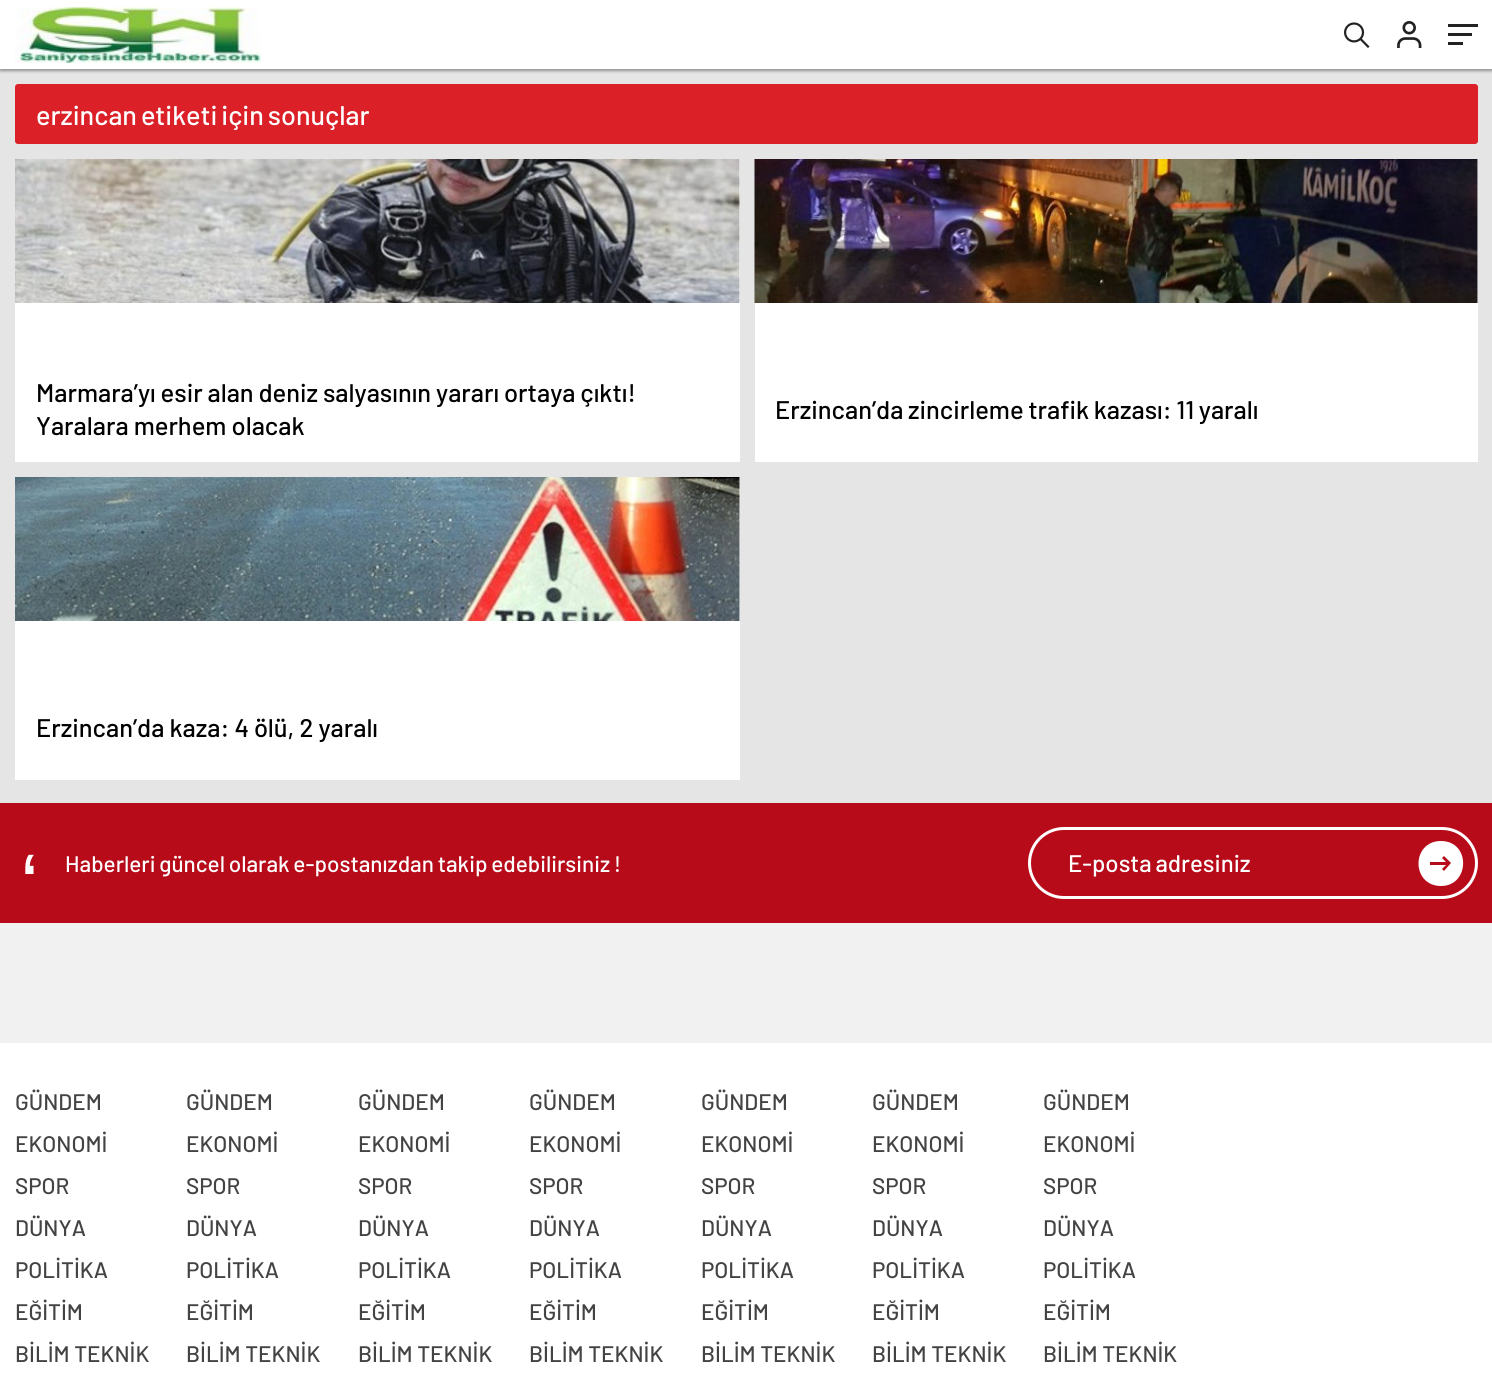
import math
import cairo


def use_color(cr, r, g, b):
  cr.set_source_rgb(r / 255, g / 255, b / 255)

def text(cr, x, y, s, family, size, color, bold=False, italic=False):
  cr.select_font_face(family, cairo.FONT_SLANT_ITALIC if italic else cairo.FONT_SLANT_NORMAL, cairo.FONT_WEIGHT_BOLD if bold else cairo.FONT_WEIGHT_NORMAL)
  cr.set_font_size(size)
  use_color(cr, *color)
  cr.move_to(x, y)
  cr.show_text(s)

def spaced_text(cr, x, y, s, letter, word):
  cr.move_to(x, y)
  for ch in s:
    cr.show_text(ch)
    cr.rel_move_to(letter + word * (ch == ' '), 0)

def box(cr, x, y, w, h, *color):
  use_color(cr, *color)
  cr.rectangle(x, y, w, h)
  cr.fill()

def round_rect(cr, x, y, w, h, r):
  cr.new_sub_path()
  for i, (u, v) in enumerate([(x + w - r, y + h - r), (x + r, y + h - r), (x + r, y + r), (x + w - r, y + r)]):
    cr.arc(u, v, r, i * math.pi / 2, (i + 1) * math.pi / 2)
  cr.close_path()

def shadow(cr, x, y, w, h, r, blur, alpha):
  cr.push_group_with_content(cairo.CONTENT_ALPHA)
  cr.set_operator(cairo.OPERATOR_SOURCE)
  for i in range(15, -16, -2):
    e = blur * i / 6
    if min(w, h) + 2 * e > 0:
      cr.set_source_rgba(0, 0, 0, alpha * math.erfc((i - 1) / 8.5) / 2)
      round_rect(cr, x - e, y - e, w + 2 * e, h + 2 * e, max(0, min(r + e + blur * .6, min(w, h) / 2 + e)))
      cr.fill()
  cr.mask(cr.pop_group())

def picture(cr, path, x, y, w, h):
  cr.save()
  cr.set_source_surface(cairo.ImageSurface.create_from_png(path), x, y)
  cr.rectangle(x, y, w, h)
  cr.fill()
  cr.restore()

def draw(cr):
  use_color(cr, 229, 229, 229)
  cr.paint()
  use_color(cr, 0, 0, 0)
  shadow(cr, 0, 2, 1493, 69, 0, 1.5, 0.37)
  box(cr, 0, 0, 1492, 69, 255, 255, 255)
  picture(cr, "img_01.png", 15, 7, 246, 56)
  picture(cr, "img_02.png", 1344, 22, 26, 26)
  picture(cr, "img_03.png", 1397, 21, 25, 27)
  box(cr, 1448, 24, 30, 3, 34, 34, 34)
  box(cr, 1448, 33, 24, 3, 34, 34, 34)
  box(cr, 1448, 42, 15, 3, 34, 34, 34)
  use_color(cr, 219, 32, 39)
  round_rect(cr, 15, 84, 1463, 60, 3)
  cr.fill()
  box(cr, 15, 159, 725, 303, 255, 255, 255)
  picture(cr, "img_04.png", 15, 159, 725, 144)
  box(cr, 755, 159, 723, 303, 255, 255, 255)
  picture(cr, "img_05.png", 754, 159, 724, 144)
  box(cr, 15, 477, 725, 303, 255, 255, 255)
  picture(cr, "img_06.png", 15, 477, 725, 144)
  box(cr, 0, 1043, 1492, 352, 255, 255, 255)
  box(cr, 0, 803, 1492, 120, 183, 11, 25)
  round_rect(cr, 1029.5, 828.5, 447, 69, 34.5)
  use_color(cr, 255, 255, 255)
  cr.set_line_width(3)
  cr.stroke()
  cr.new_path()
  cr.move_to(1441, 886)
  cr.curve_to(1411, 886, 1411, 841, 1441, 841)
  cr.curve_to(1471, 841, 1470, 886, 1441, 886)
  cr.close_path()
  cr.move_to(1430, 862)
  cr.line_to(1430, 865)
  cr.line_to(1446, 865)
  cr.line_to(1442, 869)
  cr.line_to(1444, 871)
  cr.line_to(1451, 863)
  cr.line_to(1444, 856)
  cr.line_to(1442, 858)
  cr.line_to(1446, 862)
  cr.close_path()
  cr.fill()
  box(cr, 0, 923, 1492, 120, 241, 241, 241)
  cr.select_font_face("Barlow Medium")
  cr.set_font_size(27)
  use_color(cr, 255, 255, 255)
  spaced_text(cr, 36, 125, "erzincan etiketi için sonuçlar", 0, -1.5)
  cr.set_font_size(25.5)
  use_color(cr, 0, 0, 0)
  spaced_text(cr, 36, 402, "Marmara’yı esir alan deniz salyasının yararı ortaya çıktı!", 0, -0.25)
  text(cr, 36, 435, "Yaralara merhem olacak", "Barlow Medium", 25.5, (0, 0, 0))
  spaced_text(cr, 775, 419, "Erzincan’da zincirleme trafik kazası: 11 yaralı", 0, -0.5)
  text(cr, 36, 737, "Erzincan’da kaza: 4 ölü, 2 yaralı", "Barlow Medium", 25.5, (0, 0, 0))
  text(cr, 20, 914, "‘", "Liberation Sans", 86, (255, 255, 255))
  cr.select_font_face("Barlow Medium")
  cr.set_font_size(22.5)
  spaced_text(cr, 65, 872, "Haberleri güncel olarak e-postanızdan takip edebilirsiniz !", 0, -0.75)
  cr.set_font_size(24)
  spaced_text(cr, 1068, 872, "E-posta adresiniz", 0, -1)
  text(cr, 15, 1110, "GÜNDEM", "Barlow Medium", 22.5, (68, 67, 67))
  text(cr, 15, 1152, "EKONOMİ", "Barlow Medium", 22.5, (68, 67, 67))
  text(cr, 15, 1194, "SPOR", "Barlow Medium", 22.5, (68, 67, 67))
  text(cr, 15, 1236, "DÜNYA", "Barlow Medium", 22.5, (68, 67, 67))
  text(cr, 15, 1278, "POLİTİKA", "Barlow Medium", 22.5, (68, 67, 67))
  text(cr, 15, 1320, "EĞİTİM", "Barlow Medium", 22.5, (68, 67, 67))
  text(cr, 15, 1362, "BİLİM TEKNİK", "Barlow Medium", 22.5, (68, 67, 67))
  text(cr, 186, 1110, "GÜNDEM", "Barlow Medium", 22.5, (68, 67, 67))
  text(cr, 186, 1152, "EKONOMİ", "Barlow Medium", 22.5, (68, 67, 67))
  text(cr, 186, 1194, "SPOR", "Barlow Medium", 22.5, (68, 67, 67))
  text(cr, 186, 1236, "DÜNYA", "Barlow Medium", 22.5, (68, 67, 67))
  text(cr, 186, 1278, "POLİTİKA", "Barlow Medium", 22.5, (68, 67, 67))
  text(cr, 186, 1320, "EĞİTİM", "Barlow Medium", 22.5, (68, 67, 67))
  text(cr, 186, 1362, "BİLİM TEKNİK", "Barlow Medium", 22.5, (68, 67, 67))
  text(cr, 358, 1110, "GÜNDEM", "Barlow Medium", 22.5, (68, 67, 67))
  text(cr, 358, 1152, "EKONOMİ", "Barlow Medium", 22.5, (68, 67, 67))
  text(cr, 358, 1194, "SPOR", "Barlow Medium", 22.5, (68, 67, 67))
  text(cr, 358, 1236, "DÜNYA", "Barlow Medium", 22.5, (68, 67, 67))
  text(cr, 358, 1278, "POLİTİKA", "Barlow Medium", 22.5, (68, 67, 67))
  text(cr, 358, 1320, "EĞİTİM", "Barlow Medium", 22.5, (68, 67, 67))
  text(cr, 358, 1362, "BİLİM TEKNİK", "Barlow Medium", 22.5, (68, 67, 67))
  text(cr, 529, 1110, "GÜNDEM", "Barlow Medium", 22.5, (68, 67, 67))
  text(cr, 529, 1152, "EKONOMİ", "Barlow Medium", 22.5, (68, 67, 67))
  text(cr, 529, 1194, "SPOR", "Barlow Medium", 22.5, (68, 67, 67))
  text(cr, 529, 1236, "DÜNYA", "Barlow Medium", 22.5, (68, 67, 67))
  text(cr, 529, 1278, "POLİTİKA", "Barlow Medium", 22.5, (68, 67, 67))
  text(cr, 529, 1320, "EĞİTİM", "Barlow Medium", 22.5, (68, 67, 67))
  text(cr, 529, 1362, "BİLİM TEKNİK", "Barlow Medium", 22.5, (68, 67, 67))
  text(cr, 701, 1110, "GÜNDEM", "Barlow Medium", 22.5, (68, 67, 67))
  text(cr, 701, 1152, "EKONOMİ", "Barlow Medium", 22.5, (68, 67, 67))
  text(cr, 701, 1194, "SPOR", "Barlow Medium", 22.5, (68, 67, 67))
  text(cr, 701, 1236, "DÜNYA", "Barlow Medium", 22.5, (68, 67, 67))
  text(cr, 701, 1278, "POLİTİKA", "Barlow Medium", 22.5, (68, 67, 67))
  text(cr, 701, 1320, "EĞİTİM", "Barlow Medium", 22.5, (68, 67, 67))
  text(cr, 701, 1362, "BİLİM TEKNİK", "Barlow Medium", 22.5, (68, 67, 67))
  text(cr, 872, 1110, "GÜNDEM", "Barlow Medium", 22.5, (68, 67, 67))
  text(cr, 872, 1152, "EKONOMİ", "Barlow Medium", 22.5, (68, 67, 67))
  text(cr, 872, 1194, "SPOR", "Barlow Medium", 22.5, (68, 67, 67))
  text(cr, 872, 1236, "DÜNYA", "Barlow Medium", 22.5, (68, 67, 67))
  text(cr, 872, 1278, "POLİTİKA", "Barlow Medium", 22.5, (68, 67, 67))
  text(cr, 872, 1320, "EĞİTİM", "Barlow Medium", 22.5, (68, 67, 67))
  text(cr, 872, 1362, "BİLİM TEKNİK", "Barlow Medium", 22.5, (68, 67, 67))
  text(cr, 1043, 1110, "GÜNDEM", "Barlow Medium", 22.5, (68, 67, 67))
  text(cr, 1043, 1152, "EKONOMİ", "Barlow Medium", 22.5, (68, 67, 67))
  text(cr, 1043, 1194, "SPOR", "Barlow Medium", 22.5, (68, 67, 67))
  text(cr, 1043, 1236, "DÜNYA", "Barlow Medium", 22.5, (68, 67, 67))
  text(cr, 1043, 1278, "POLİTİKA", "Barlow Medium", 22.5, (68, 67, 67))
  text(cr, 1043, 1320, "EĞİTİM", "Barlow Medium", 22.5, (68, 67, 67))
  text(cr, 1043, 1362, "BİLİM TEKNİK", "Barlow Medium", 22.5, (68, 67, 67))


surface = cairo.ImageSurface(cairo.FORMAT_RGB24, 1492, 1395)
cr = cairo.Context(surface)
options = cairo.FontOptions()
options.set_hint_metrics(cairo.HINT_METRICS_OFF)
options.set_hint_style(cairo.HINT_STYLE_NONE)
cr.set_font_options(options)
cr.set_miter_limit(4)
draw(cr)
surface.write_to_png("out.png")
